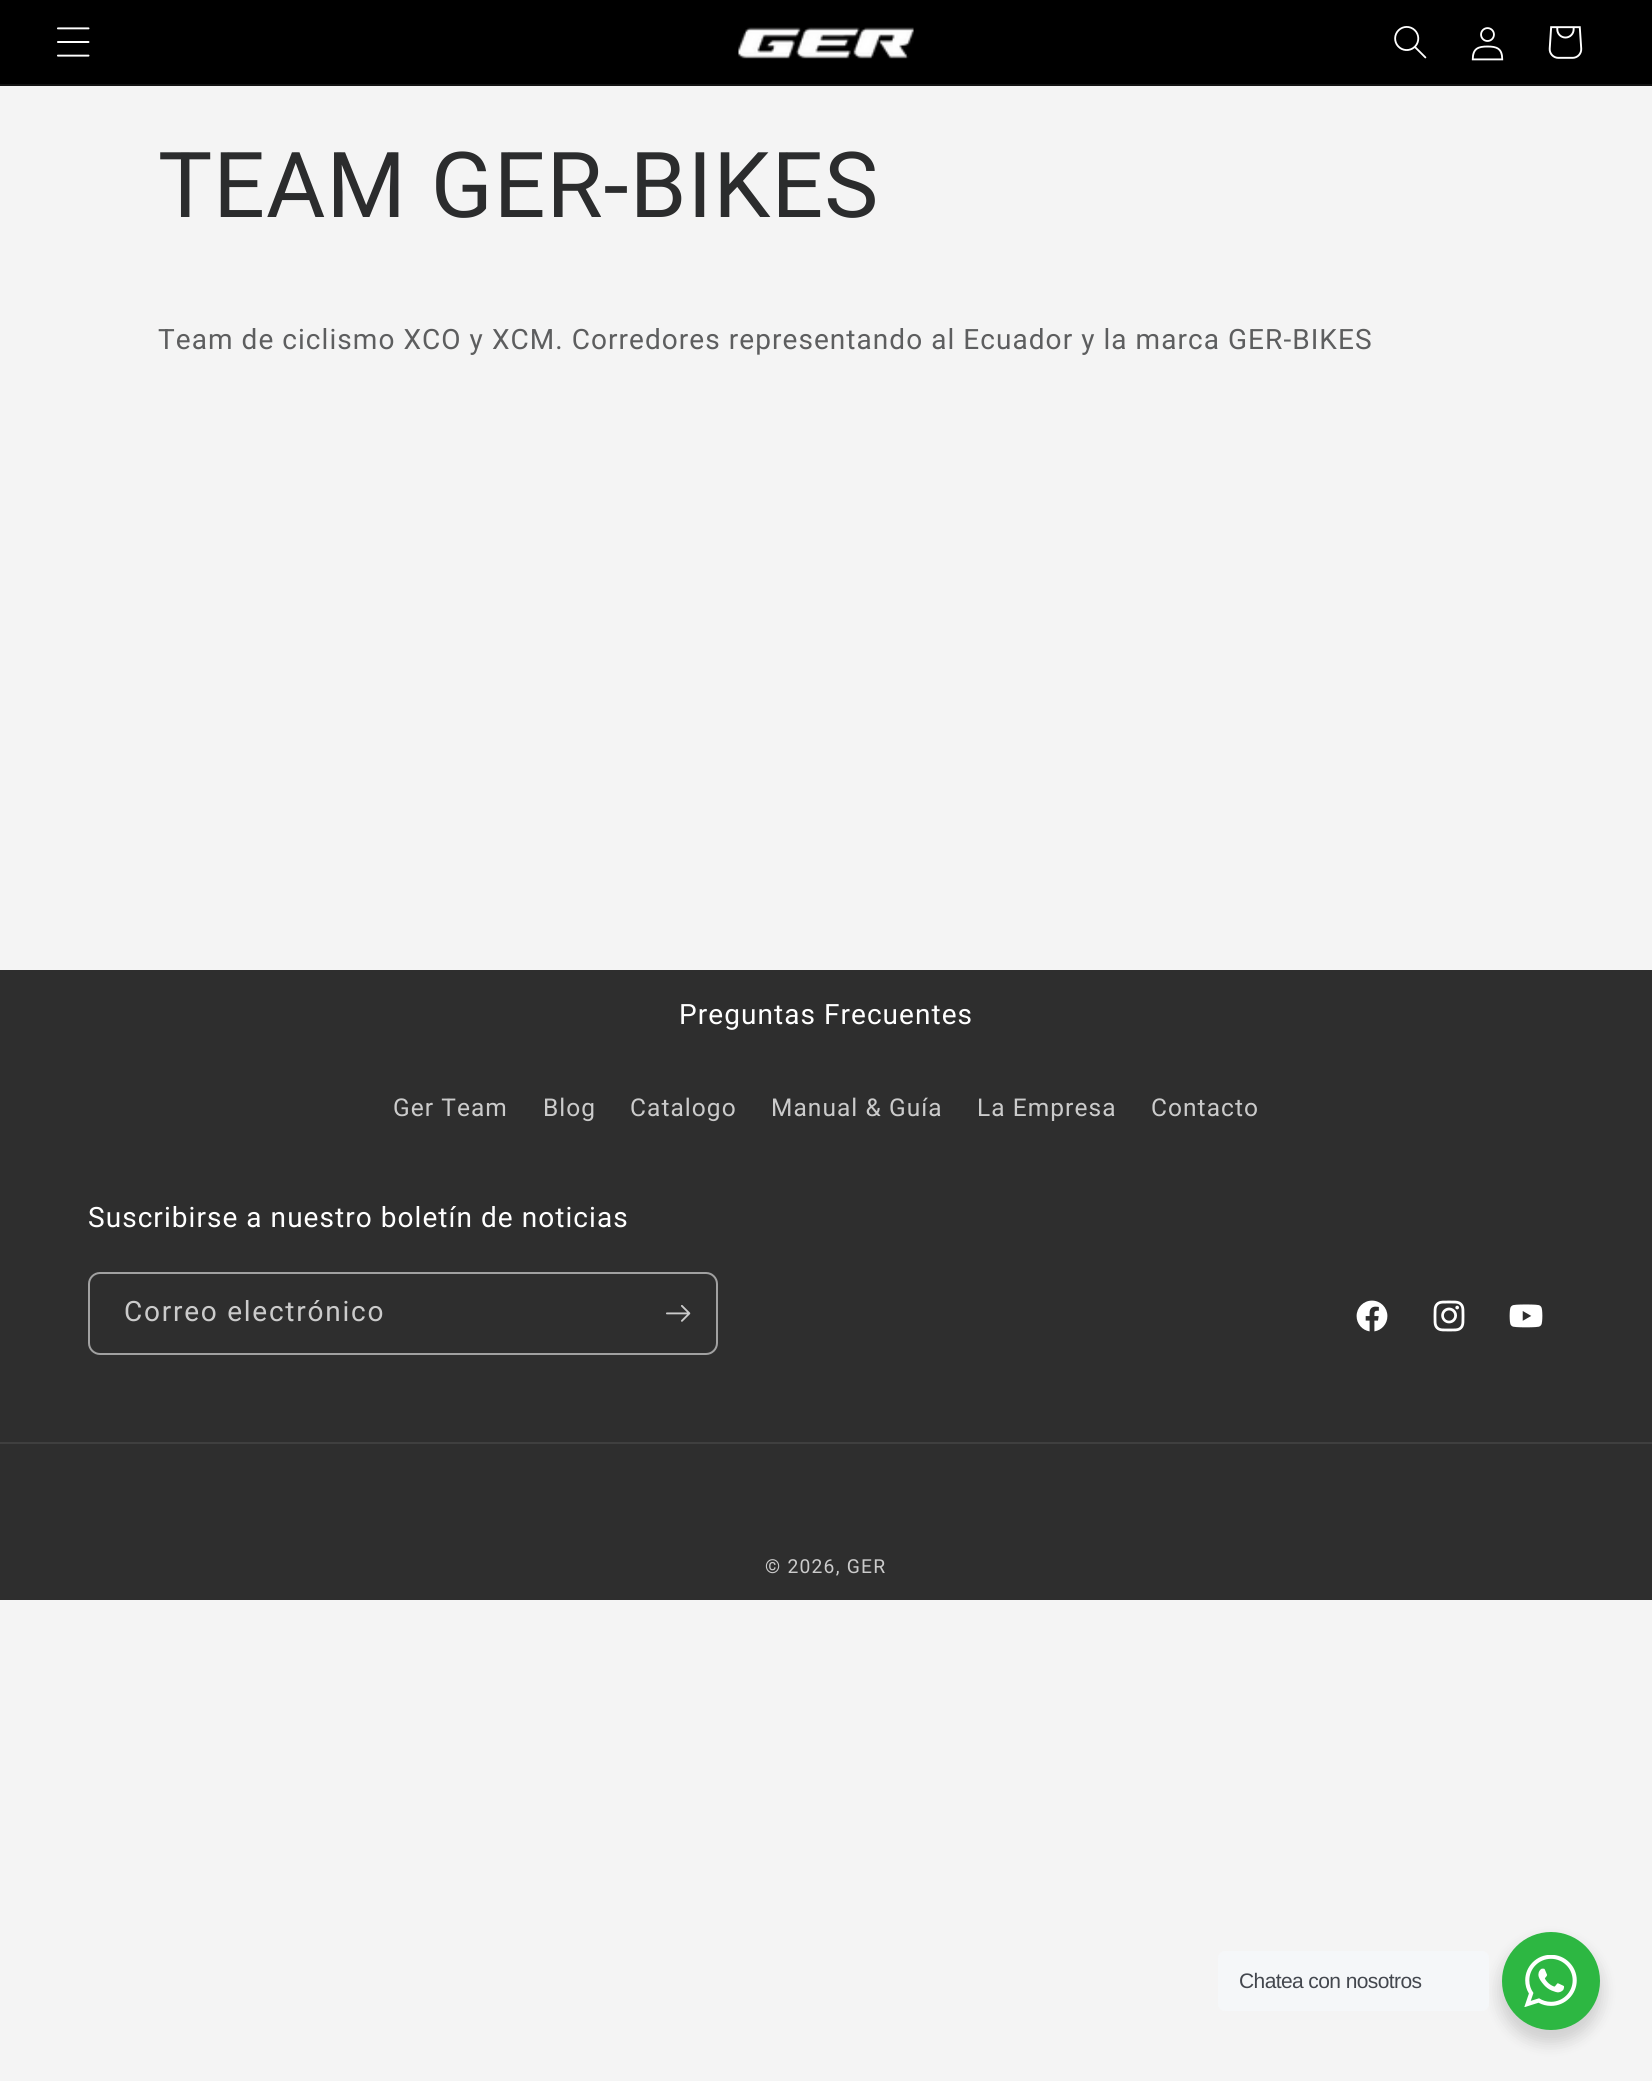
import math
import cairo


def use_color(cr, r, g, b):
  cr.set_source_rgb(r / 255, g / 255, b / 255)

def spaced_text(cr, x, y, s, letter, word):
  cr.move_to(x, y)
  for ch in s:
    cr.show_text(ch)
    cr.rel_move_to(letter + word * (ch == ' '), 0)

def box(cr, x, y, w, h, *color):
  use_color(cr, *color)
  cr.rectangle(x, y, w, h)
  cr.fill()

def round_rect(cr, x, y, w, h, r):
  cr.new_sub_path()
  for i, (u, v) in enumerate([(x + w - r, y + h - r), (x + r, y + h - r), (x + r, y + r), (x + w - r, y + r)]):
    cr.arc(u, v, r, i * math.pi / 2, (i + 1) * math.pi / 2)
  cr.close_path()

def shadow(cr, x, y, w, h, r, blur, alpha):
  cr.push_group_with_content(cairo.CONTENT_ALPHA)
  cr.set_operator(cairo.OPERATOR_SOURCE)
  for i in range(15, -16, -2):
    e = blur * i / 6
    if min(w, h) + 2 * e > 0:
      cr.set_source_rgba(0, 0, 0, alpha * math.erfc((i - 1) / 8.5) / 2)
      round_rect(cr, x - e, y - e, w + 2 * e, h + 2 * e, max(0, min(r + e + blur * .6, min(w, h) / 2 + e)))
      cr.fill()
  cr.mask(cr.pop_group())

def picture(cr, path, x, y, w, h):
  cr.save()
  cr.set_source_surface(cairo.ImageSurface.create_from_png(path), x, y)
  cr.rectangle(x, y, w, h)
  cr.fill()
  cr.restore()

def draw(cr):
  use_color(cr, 244, 244, 244)
  cr.paint()
  box(cr, 0, 0, 1652, 84, 0, 0, 0)
  box(cr, 0, 84, 1652, 2, 20, 20, 20)
  picture(cr, "img_01.png", 57, 27, 33, 30)
  picture(cr, "img_02.png", 738, 27, 176, 32)
  picture(cr, "img_03.png", 1394, 26, 33, 33)
  picture(cr, "img_04.png", 1471, 27, 33, 34)
  picture(cr, "img_05.png", 1548, 26, 35, 33)
  box(cr, 0, 970, 1652, 630, 46, 46, 46)
  round_rect(cr, 89, 1273, 628, 81, 11)
  use_color(cr, 161, 161, 161)
  cr.stroke()
  picture(cr, "img_06.png", 666, 1305, 25, 17)
  picture(cr, "img_07.png", 1356, 1300, 32, 32)
  picture(cr, "img_08.png", 1433, 1300, 32, 32)
  picture(cr, "img_09.png", 1509, 1304, 34, 24)
  box(cr, 0, 1442, 1652, 2, 63, 63, 63)
  use_color(cr, 0, 0, 0)
  shadow(cr, 1498, 1939, 105, 105, 52.5, 7, 0.14)
  use_color(cr, 245, 247, 249)
  round_rect(cr, 1218, 1951, 271, 60, 7)
  cr.fill()
  use_color(cr, 45, 183, 66)
  cr.arc(1551, 1981, 49, 0, 2 * math.pi)
  cr.fill()
  picture(cr, "img_10.png", 1524, 1955, 53, 52)
  cr.select_font_face("Roboto")
  cr.set_font_size(91)
  use_color(cr, 43, 44, 45)
  spaced_text(cr, 158, 217, "TEAM GER-BIKES", 1.05, 0)
  cr.set_font_size(28)
  use_color(cr, 93, 94, 95)
  spaced_text(cr, 158, 349, "Team de ciclismo XCO y XCM. Corredores representando al Ecuador y la marca GER-BIKES", 1.05, 0)
  use_color(cr, 255, 255, 255)
  spaced_text(cr, 679, 1024, "Preguntas Frecuentes", 1.05, 0)
  cr.set_font_size(24.5)
  use_color(cr, 203, 203, 203)
  spaced_text(cr, 393, 1116, "Ger Team", 1.05, 0)
  spaced_text(cr, 543, 1116, "Blog", 1.05, 0)
  spaced_text(cr, 630, 1116, "Catalogo", 1.05, 0)
  spaced_text(cr, 771, 1116, "Manual & Guía", 1.05, 0)
  spaced_text(cr, 977, 1116, "La Empresa", 1.05, 0)
  spaced_text(cr, 1151, 1116, "Contacto", 1.05, 0)
  cr.set_font_size(28)
  use_color(cr, 255, 255, 255)
  spaced_text(cr, 88, 1227, "Suscribirse a nuestro boletín de noticias", 1.05, 0)
  use_color(cr, 203, 203, 203)
  spaced_text(cr, 124, 1321, "Correo electrónico", 1.75, 0)
  cr.set_font_size(19.25)
  spaced_text(cr, 765, 1573, "© 2026, GER", 1.25, 0)
  cr.select_font_face("Liberation Sans")
  cr.set_font_size(21)
  use_color(cr, 67, 71, 78)
  spaced_text(cr, 1239, 1988, "Chatea con nosotros", -0.6, 0)


surface = cairo.ImageSurface(cairo.FORMAT_RGB24, 1652, 2081)
cr = cairo.Context(surface)
options = cairo.FontOptions()
options.set_hint_metrics(cairo.HINT_METRICS_OFF)
options.set_hint_style(cairo.HINT_STYLE_NONE)
cr.set_font_options(options)
cr.set_miter_limit(4)
draw(cr)
surface.write_to_png("out.png")
